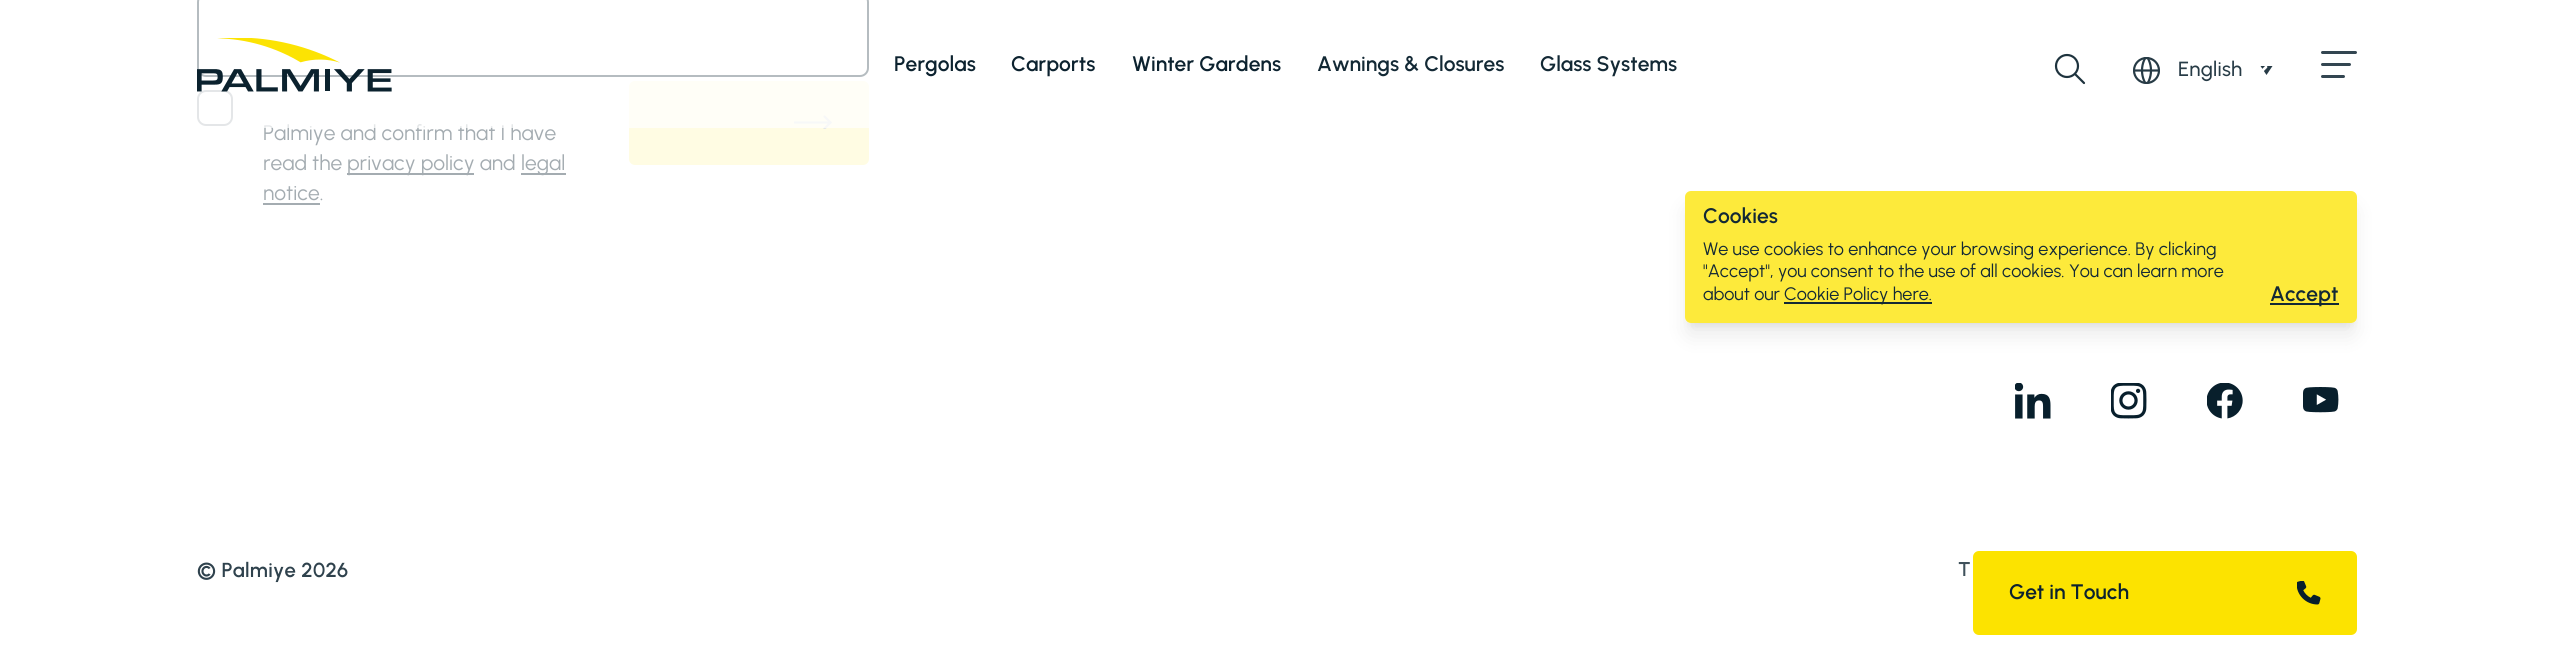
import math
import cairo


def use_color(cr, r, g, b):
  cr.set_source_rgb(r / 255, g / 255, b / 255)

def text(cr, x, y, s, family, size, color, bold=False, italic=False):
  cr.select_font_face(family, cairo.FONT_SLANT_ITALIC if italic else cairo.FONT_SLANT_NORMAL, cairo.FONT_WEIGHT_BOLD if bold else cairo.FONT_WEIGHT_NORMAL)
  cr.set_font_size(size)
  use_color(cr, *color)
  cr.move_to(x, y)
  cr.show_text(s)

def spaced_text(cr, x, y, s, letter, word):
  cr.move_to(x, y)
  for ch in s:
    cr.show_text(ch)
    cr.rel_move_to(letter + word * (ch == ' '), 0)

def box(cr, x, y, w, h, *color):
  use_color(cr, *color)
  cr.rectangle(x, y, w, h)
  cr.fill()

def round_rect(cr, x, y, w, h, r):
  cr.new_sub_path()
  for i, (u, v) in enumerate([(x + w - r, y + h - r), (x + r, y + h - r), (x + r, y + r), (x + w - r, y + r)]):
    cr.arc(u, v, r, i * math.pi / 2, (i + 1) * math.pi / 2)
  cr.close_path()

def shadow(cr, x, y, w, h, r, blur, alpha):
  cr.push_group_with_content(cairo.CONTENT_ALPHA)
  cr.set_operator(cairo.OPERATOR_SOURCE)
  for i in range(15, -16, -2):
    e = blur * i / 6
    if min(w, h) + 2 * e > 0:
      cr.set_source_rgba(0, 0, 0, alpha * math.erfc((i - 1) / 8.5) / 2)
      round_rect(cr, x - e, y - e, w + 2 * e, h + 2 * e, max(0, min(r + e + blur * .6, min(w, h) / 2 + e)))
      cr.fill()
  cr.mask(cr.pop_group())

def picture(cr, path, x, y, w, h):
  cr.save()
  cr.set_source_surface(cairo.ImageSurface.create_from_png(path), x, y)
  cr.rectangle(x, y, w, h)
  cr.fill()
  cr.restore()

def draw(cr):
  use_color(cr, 255, 255, 255)
  cr.paint()
  cr.arc(2067, 66, 11, 0, 2 * math.pi)
  use_color(cr, 30, 51, 62)
  cr.set_line_width(2.2)
  cr.stroke()
  cr.new_path()
  cr.move_to(2075, 74)
  cr.line_to(2084, 83)
  cr.set_line_cap(cairo.LINE_CAP_ROUND)
  cr.stroke()
  cr.save()
  cr.rectangle(2133, 57, 27, 27)
  cr.clip()
  cr.arc(2146.5, 70.5, 12.5, 0, 2 * math.pi)
  use_color(cr, 39, 59, 70)
  cr.set_line_cap(cairo.LINE_CAP_BUTT)
  cr.stroke()
  cr.restore()
  cr.new_path()
  cr.move_to(2135, 70.5)
  cr.line_to(2158, 70.5)
  use_color(cr, 39, 59, 70)
  cr.stroke()
  cr.save()
  cr.new_path()
  cr.move_to(2146.5, 57)
  cr.curve_to(2154, 57, 2160, 63, 2160, 70.5)
  cr.curve_to(2160, 78, 2154, 83.5, 2146.5, 83.5)
  cr.curve_to(2139, 83.5, 2133, 78, 2133, 70.5)
  cr.curve_to(2133, 63, 2139, 57, 2146.5, 57)
  cr.close_path()
  cr.clip()
  cr.arc(2168, 70.5, 26, 0, 2 * math.pi)
  cr.set_line_cap(cairo.LINE_CAP_BUTT)
  cr.stroke()
  cr.arc(2125, 70.5, 26, 0, 2 * math.pi)
  cr.stroke()
  cr.restore()
  cr.new_path()
  cr.move_to(2266.5, 75)
  cr.line_to(2260.5, 66)
  cr.line_to(2272.5, 66)
  cr.close_path()
  cr.fill()
  cr.new_path()
  cr.move_to(2252, 67)
  cr.line_to(2259, 74)
  cr.line_to(2266, 67)
  use_color(cr, 255, 255, 255)
  cr.set_line_width(2.7)
  cr.set_line_join(cairo.LINE_JOIN_ROUND)
  cr.stroke()
  use_color(cr, 51, 70, 81)
  round_rect(cr, 2321, 51, 36, 3, 1.5)
  cr.fill()
  round_rect(cr, 2321, 63, 30, 3, 1.5)
  cr.fill()
  round_rect(cr, 2321, 75, 24, 3, 1.5)
  cr.fill()
  round_rect(cr, 198, -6, 670, 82, 8)
  use_color(cr, 8, 31, 44)
  cr.set_line_width(2)
  cr.set_line_cap(cairo.LINE_CAP_BUTT)
  cr.set_line_join(cairo.LINE_JOIN_MITER)
  cr.stroke()
  round_rect(cr, 198, 91, 34, 34, 8)
  use_color(cr, 164, 172, 177)
  cr.stroke()
  box(cr, 347, 173, 127, 2, 164, 172, 177)
  box(cr, 521, 173, 45, 2, 164, 172, 177)
  box(cr, 263, 203, 57, 2, 164, 172, 177)
  use_color(cr, 255, 252, 227)
  round_rect(cr, 629, 81, 240, 84, 6)
  cr.fill()
  cr.save()
  cr.rectangle(794, 114, 39, 15)
  cr.clip()
  cr.new_path()
  cr.move_to(794.5, 122.5)
  cr.line_to(830.5, 122.5)
  cr.move_to(824.5, 128.5)
  cr.line_to(830.5, 122.5)
  use_color(cr, 228, 231, 232)
  cr.set_line_width(2.2)
  cr.set_line_cap(cairo.LINE_CAP_ROUND)
  cr.stroke()
  cr.restore()
  cr.new_path()
  cr.move_to(824.5, 116.5)
  cr.line_to(830.5, 122.5)
  use_color(cr, 228, 231, 232)
  cr.set_line_width(2.2)
  cr.set_line_cap(cairo.LINE_CAP_ROUND)
  cr.stroke()
  picture(cr, "img_02.png", 2015, 383, 36, 36)
  picture(cr, "img_03.png", 2111, 383, 36, 36)
  picture(cr, "img_04.png", 2207, 383, 36, 36)
  picture(cr, "img_05.png", 2303, 387, 36, 26)
  cr.save()
  cr.set_fill_rule(cairo.FILL_RULE_EVEN_ODD)
  cr.new_path()
  cr.move_to(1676, 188)
  cr.line_to(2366, 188)
  cr.line_to(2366, 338)
  cr.line_to(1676, 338)
  cr.close_path()
  cr.move_to(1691, 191)
  cr.line_to(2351, 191)
  cr.curve_to(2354.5, 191, 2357, 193.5, 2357, 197)
  cr.line_to(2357, 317)
  cr.curve_to(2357, 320.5, 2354.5, 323, 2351, 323)
  cr.line_to(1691, 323)
  cr.curve_to(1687.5, 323, 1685, 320.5, 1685, 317)
  cr.line_to(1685, 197)
  cr.curve_to(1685, 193.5, 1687.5, 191, 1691, 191)
  cr.close_path()
  cr.clip()
  use_color(cr, 11, 11, 11)
  shadow(cr, 1691, 203, 660, 120, 0, 4.5, 0.1)
  cr.restore()
  cr.save()
  cr.set_fill_rule(cairo.FILL_RULE_EVEN_ODD)
  cr.new_path()
  cr.move_to(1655, 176)
  cr.line_to(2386, 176)
  cr.line_to(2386, 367)
  cr.line_to(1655, 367)
  cr.close_path()
  cr.move_to(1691, 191)
  cr.line_to(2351, 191)
  cr.curve_to(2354.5, 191, 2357, 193.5, 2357, 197)
  cr.line_to(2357, 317)
  cr.curve_to(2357, 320.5, 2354.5, 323, 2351, 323)
  cr.line_to(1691, 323)
  cr.curve_to(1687.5, 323, 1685, 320.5, 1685, 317)
  cr.line_to(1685, 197)
  cr.curve_to(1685, 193.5, 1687.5, 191, 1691, 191)
  cr.close_path()
  cr.clip()
  use_color(cr, 11, 11, 11)
  shadow(cr, 1689, 210, 663, 123, 1.5, 11, 0.1)
  cr.restore()
  cr.set_source_rgba(0.988, 0.894, 0.043, 0.8)
  round_rect(cr, 1685, 191, 672, 132, 6)
  cr.fill()
  box(cr, 1784, 302, 148, 2, 19, 41, 53)
  box(cr, 2270, 303, 69, 2, 19, 41, 53)
  use_color(cr, 252, 227, 0)
  round_rect(cr, 1973, 551, 384, 84, 6)
  cr.fill()
  picture(cr, "img_06.png", 2297, 581, 24, 24)
  text(cr, 894, 71, "Pergolas", "Urbanist SemiBold", 21, (12, 34, 47))
  text(cr, 1011, 71, "Carports", "Urbanist SemiBold", 21, (12, 34, 47))
  text(cr, 1132, 71, "Winter Gardens", "Urbanist SemiBold", 21, (12, 34, 47))
  text(cr, 1317, 71, "Awnings & Closures", "Urbanist SemiBold", 21, (19, 41, 53))
  text(cr, 1540, 71, "Glass Systems", "Urbanist SemiBold", 21, (19, 41, 53))
  cr.select_font_face("Urbanist Medium")
  cr.set_font_size(20.5)
  use_color(cr, 39, 59, 70)
  spaced_text(cr, 2178, 76, "English", 0.25, 0)
  text(cr, 263, 140, "Palmiye and confirm that I have", "Urbanist", 21, (164, 172, 177))
  cr.set_source_rgba(1, 1, 1, 0.7)
  cr.rectangle(197, 0, 672, 128)
  cr.fill()
  picture(cr, "img_01.png", 197, 38, 195, 54)
  text(cr, 263, 170, "read the", "Urbanist", 21, (164, 172, 177))
  text(cr, 347, 170, "privacy policy and", "Urbanist", 21, (164, 172, 177))
  text(cr, 521, 170, "legal", "Urbanist", 21, (164, 172, 177))
  text(cr, 263, 200, "notice.", "Urbanist", 21, (164, 172, 177))
  cr.select_font_face("Urbanist SemiBold")
  cr.set_font_size(20.25)
  use_color(cr, 47, 66, 77)
  spaced_text(cr, 197, 577, "© Palmiye 2026", 0.3, 0)
  cr.set_font_size(20)
  use_color(cr, 63, 81, 91)
  spaced_text(cr, 1958, 576, "T", 1, 0)
  text(cr, 1703, 223, "Cookies", "Urbanist SemiBold", 21, (19, 41, 53))
  text(cr, 1703, 255, "We use cookies to enhance your browsing experience. By clicking", "Urbanist", 18, (19, 41, 53))
  text(cr, 1703, 277, "\"Accept\", you consent to the use of all cookies. You can learn more", "Urbanist", 18, (19, 41, 53))
  text(cr, 1703, 300, "about our", "Urbanist", 18, (19, 41, 53))
  text(cr, 1784, 300, "Cookie Policy here.", "Urbanist", 18, (19, 41, 53))
  text(cr, 2270, 301, "Accept", "Urbanist SemiBold", 21, (19, 41, 53))
  text(cr, 2009, 599, "Get in Touch", "Urbanist SemiBold", 21, (12, 34, 47))


surface = cairo.ImageSurface(cairo.FORMAT_RGB24, 2553, 658)
cr = cairo.Context(surface)
options = cairo.FontOptions()
options.set_hint_metrics(cairo.HINT_METRICS_OFF)
options.set_hint_style(cairo.HINT_STYLE_NONE)
cr.set_font_options(options)
cr.set_miter_limit(4)
draw(cr)
surface.write_to_png("out.png")
